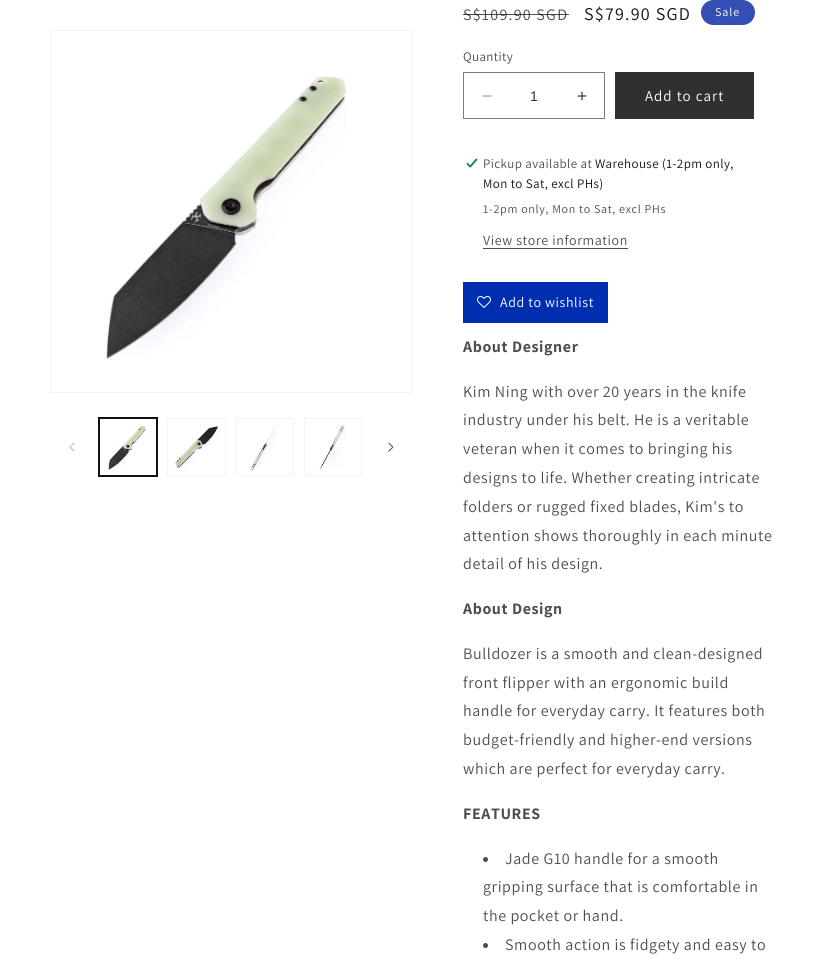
import math
import cairo


def use_color(cr, r, g, b):
  cr.set_source_rgb(r / 255, g / 255, b / 255)

def text(cr, x, y, s, family, size, color, bold=False, italic=False):
  cr.select_font_face(family, cairo.FONT_SLANT_ITALIC if italic else cairo.FONT_SLANT_NORMAL, cairo.FONT_WEIGHT_BOLD if bold else cairo.FONT_WEIGHT_NORMAL)
  cr.set_font_size(size)
  use_color(cr, *color)
  cr.move_to(x, y)
  cr.show_text(s)

def spaced_text(cr, x, y, s, letter, word):
  cr.move_to(x, y)
  for ch in s:
    cr.show_text(ch)
    cr.rel_move_to(letter + word * (ch == ' '), 0)

def box(cr, x, y, w, h, *color):
  use_color(cr, *color)
  cr.rectangle(x, y, w, h)
  cr.fill()

def round_rect(cr, x, y, w, h, r):
  cr.new_sub_path()
  for i, (u, v) in enumerate([(x + w - r, y + h - r), (x + r, y + h - r), (x + r, y + r), (x + w - r, y + r)]):
    cr.arc(u, v, r, i * math.pi / 2, (i + 1) * math.pi / 2)
  cr.close_path()

def picture(cr, path, x, y, w, h):
  cr.save()
  cr.set_source_surface(cairo.ImageSurface.create_from_png(path), x, y)
  cr.rectangle(x, y, w, h)
  cr.fill()
  cr.restore()

def draw(cr):
  use_color(cr, 255, 255, 255)
  cr.paint()
  cr.rectangle(50.5, 30.5, 362, 362)
  use_color(cr, 243, 243, 243)
  cr.set_line_width(1)
  cr.stroke()
  picture(cr, "img_01.png", 106, 76, 241, 284)
  picture(cr, "img_02.png", 69, 442, 6, 10)
  cr.rectangle(98.5, 417.5, 59, 59)
  use_color(cr, 18, 18, 18)
  cr.stroke()
  cr.rectangle(99.5, 418.5, 57, 57)
  cr.stroke()
  picture(cr, "img_03.png", 108, 426, 39, 44)
  cr.rectangle(167.5, 418.5, 58, 57)
  use_color(cr, 243, 243, 243)
  cr.stroke()
  picture(cr, "img_04.png", 175, 426, 44, 42)
  cr.rectangle(236.5, 418.5, 57, 57)
  cr.stroke()
  picture(cr, "img_05.png", 250, 425, 27, 46)
  cr.rectangle(304.5, 418.5, 57, 57)
  cr.stroke()
  picture(cr, "img_06.png", 319, 425, 27, 46)
  picture(cr, "img_07.png", 388, 442, 6, 10)
  use_color(cr, 51, 79, 180)
  round_rect(cr, 701.5, 0.5, 53, 24, 12)
  cr.fill_preserve()
  cr.stroke()
  picture(cr, "img_08.png", 482, 95, 10, 2)
  picture(cr, "img_09.png", 577, 91, 10, 10)
  cr.rectangle(463.5, 72.5, 141, 46)
  use_color(cr, 125, 125, 125)
  cr.stroke()
  box(cr, 615, 72, 139, 47, 48, 48, 48)
  picture(cr, "img_10.png", 466, 158, 12, 10)
  box(cr, 483, 248, 145, 1, 77, 77, 77)
  box(cr, 463, 282, 145, 41, 0, 46, 176)
  picture(cr, "img_11.png", 477, 296, 14, 12)
  use_color(cr, 77, 77, 77)
  cr.arc(485.5, 859.5, 2.5, 0, 2 * math.pi)
  cr.fill()
  cr.arc(485.5, 945.5, 2.5, 0, 2 * math.pi)
  cr.fill()
  cr.select_font_face("Assistant")
  cr.set_font_size(16)
  spaced_text(cr, 463, 20, "S$109.90 SGD", 1.25, 0)
  cr.set_source_rgba(0.071, 0.071, 0.071, 0.75)
  cr.rectangle(463, 14, 106, 1)
  cr.fill()
  cr.set_font_size(18)
  use_color(cr, 18, 18, 18)
  spaced_text(cr, 584, 20, "S$79.90 SGD", 1.25, 0)
  cr.set_font_size(12)
  use_color(cr, 255, 255, 255)
  spaced_text(cr, 715, 16, "Sale", 1, 0)
  cr.set_font_size(13)
  use_color(cr, 77, 77, 77)
  spaced_text(cr, 463, 61, "Quantity", 0.4, 0)
  text(cr, 530, 101, "1", "Liberation Sans", 14, (54, 54, 54))
  cr.select_font_face("Assistant")
  cr.set_font_size(15)
  use_color(cr, 255, 255, 255)
  spaced_text(cr, 645, 101, "Add to cart", 1, 0)
  cr.set_font_size(13)
  use_color(cr, 77, 77, 77)
  spaced_text(cr, 483, 168, "Pickup available at", 0.4, 0)
  use_color(cr, 18, 18, 18)
  spaced_text(cr, 595, 168, "Warehouse (1-2pm only,", 0.4, 0)
  spaced_text(cr, 483, 188, "Mon to Sat, excl PHs)", 0.4, 0)
  cr.set_font_size(12)
  use_color(cr, 77, 77, 77)
  spaced_text(cr, 483, 213, "1-2pm only, Mon to Sat, excl PHs", 0.7, 0)
  cr.set_font_size(14)
  spaced_text(cr, 483, 245, "View store information", 0.6, 0)
  use_color(cr, 255, 255, 255)
  spaced_text(cr, 500, 307, "Add to wishlist", 0.6, 0)
  cr.select_font_face("Assistant", cairo.FONT_SLANT_NORMAL, cairo.FONT_WEIGHT_BOLD)
  cr.set_font_size(16)
  use_color(cr, 77, 77, 77)
  spaced_text(cr, 463, 352, "About Designer", 0.6, 0)
  cr.select_font_face("Assistant")
  spaced_text(cr, 463, 397, "Kim Ning with over 20 years in the knife", 0.6, 0)
  spaced_text(cr, 463, 425, "industry under his belt. He is a veritable", 0.6, 0)
  spaced_text(cr, 463, 454, "veteran when it comes to bringing his", 0.6, 0)
  spaced_text(cr, 463, 483, "designs to life. Whether creating intricate", 0.6, 0)
  spaced_text(cr, 463, 512, "folders or rugged fixed blades, Kim's to", 0.6, 0)
  spaced_text(cr, 463, 541, "attention shows thoroughly in each minute", 0.6, 0)
  spaced_text(cr, 463, 569, "detail of his design.", 0.6, 0)
  cr.select_font_face("Assistant", cairo.FONT_SLANT_NORMAL, cairo.FONT_WEIGHT_BOLD)
  spaced_text(cr, 463, 614, "About Design", 0.6, 0)
  cr.select_font_face("Assistant")
  spaced_text(cr, 463, 659, "Bulldozer is a smooth and clean-designed", 0.6, 0)
  spaced_text(cr, 463, 688, "front flipper with an ergonomic build", 0.6, 0)
  spaced_text(cr, 463, 716, "handle for everyday carry. It features both", 0.6, 0)
  spaced_text(cr, 463, 745, "budget-friendly and higher-end versions", 0.6, 0)
  spaced_text(cr, 463, 774, "which are perfect for everyday carry.", 0.6, 0)
  cr.select_font_face("Assistant", cairo.FONT_SLANT_NORMAL, cairo.FONT_WEIGHT_BOLD)
  spaced_text(cr, 463, 819, "FEATURES", 0.6, 0)
  cr.select_font_face("Assistant")
  spaced_text(cr, 505, 864, "Jade G10 handle for a smooth", 0.6, 0)
  spaced_text(cr, 483, 892, "gripping surface that is comfortable in", 0.6, 0)
  spaced_text(cr, 483, 921, "the pocket or hand.", 0.6, 0)
  spaced_text(cr, 505, 950, "Smooth action is fidgety and easy to", 0.6, 0)


surface = cairo.ImageSurface(cairo.FORMAT_RGB24, 826, 975)
cr = cairo.Context(surface)
options = cairo.FontOptions()
options.set_hint_metrics(cairo.HINT_METRICS_OFF)
options.set_hint_style(cairo.HINT_STYLE_NONE)
cr.set_font_options(options)
cr.set_miter_limit(4)
draw(cr)
surface.write_to_png("out.png")
